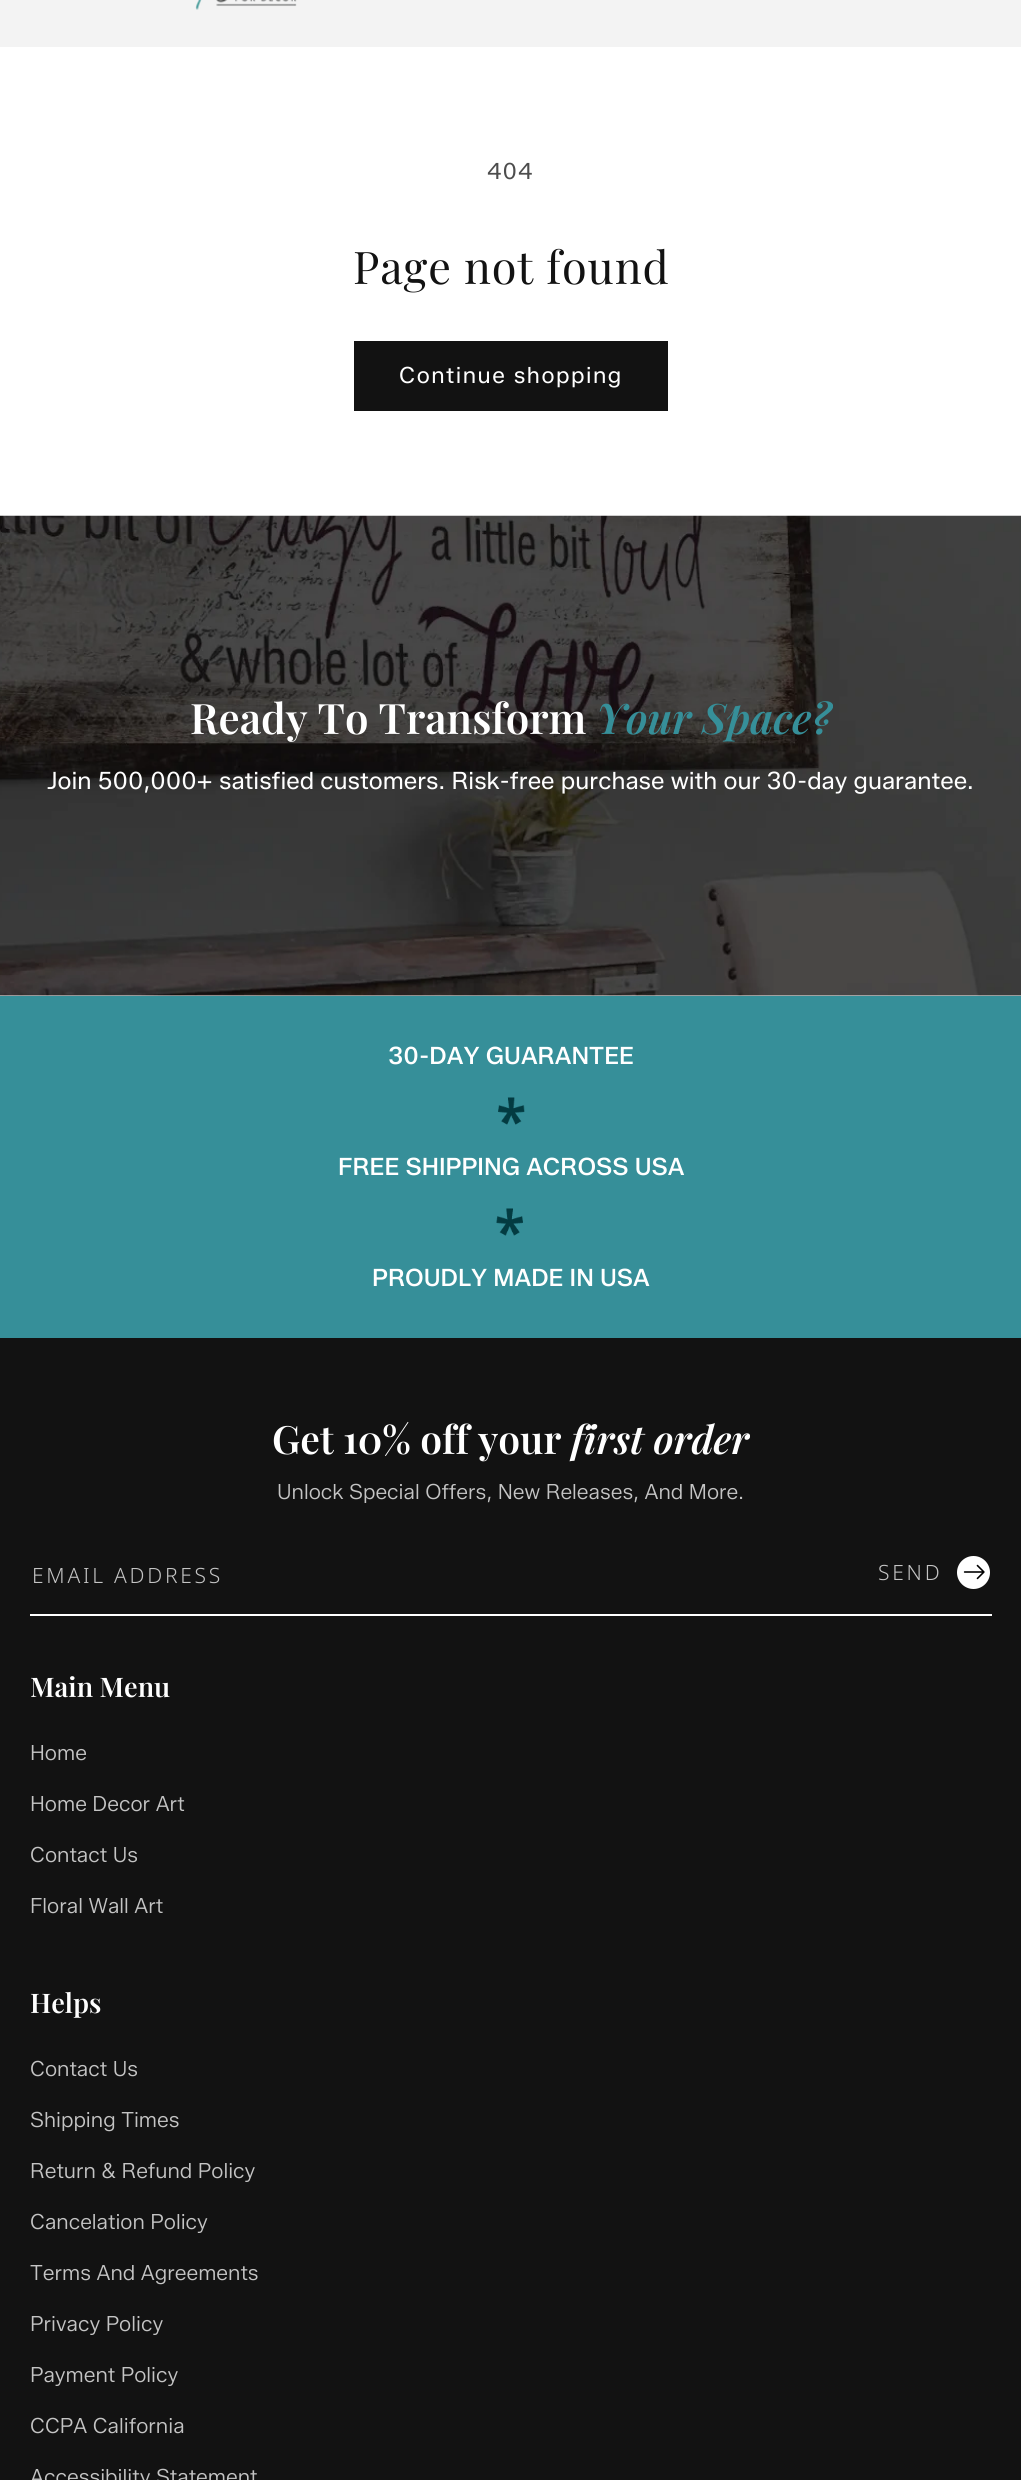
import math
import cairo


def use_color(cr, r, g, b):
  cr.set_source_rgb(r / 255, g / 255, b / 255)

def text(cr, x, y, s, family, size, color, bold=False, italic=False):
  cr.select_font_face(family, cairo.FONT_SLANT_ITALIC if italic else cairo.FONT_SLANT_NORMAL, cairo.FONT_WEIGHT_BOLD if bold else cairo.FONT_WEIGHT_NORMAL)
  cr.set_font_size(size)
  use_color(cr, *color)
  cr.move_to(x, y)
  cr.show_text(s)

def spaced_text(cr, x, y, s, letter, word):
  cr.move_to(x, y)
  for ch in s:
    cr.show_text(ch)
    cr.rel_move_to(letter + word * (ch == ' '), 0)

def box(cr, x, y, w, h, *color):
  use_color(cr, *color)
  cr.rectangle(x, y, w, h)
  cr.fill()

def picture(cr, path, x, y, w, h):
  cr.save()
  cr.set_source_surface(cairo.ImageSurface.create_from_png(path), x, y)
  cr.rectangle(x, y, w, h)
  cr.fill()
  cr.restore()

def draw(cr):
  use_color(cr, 255, 255, 255)
  cr.paint()
  box(cr, 0, 0, 1021, 47, 243, 243, 243)
  picture(cr, "img_01.png", 195, 0, 102, 10)
  box(cr, 354, 341, 314, 70, 18, 18, 18)
  picture(cr, "img_02.png", 0, 515, 1021, 481)
  box(cr, 0, 996, 1021, 342, 54, 143, 153)
  picture(cr, "img_03.png", 498, 1097, 27, 28)
  picture(cr, "img_04.png", 496, 1208, 27, 28)
  box(cr, 0, 1338, 1021, 1142, 18, 18, 18)
  box(cr, 30, 1614, 962, 2, 255, 255, 255)
  cr.arc(973.5, 1572.5, 16.5, 0, 2 * math.pi)
  cr.fill()
  picture(cr, "img_05.png", 963, 1564, 22, 16)
  cr.select_font_face("Zalando Sans")
  cr.set_font_size(22.5)
  use_color(cr, 77, 77, 77)
  spaced_text(cr, 487, 179, "404", 0.9, 0)
  cr.select_font_face("Playfair Display")
  cr.set_font_size(45)
  use_color(cr, 18, 18, 18)
  spaced_text(cr, 353, 284, "Page not found", 0.9, 0)
  cr.select_font_face("Zalando Sans")
  cr.set_font_size(22.5)
  use_color(cr, 255, 255, 255)
  spaced_text(cr, 399, 383, "Continue shopping", 1.5, 0)
  text(cr, 190, 734, "Ready To Transform", "Playfair Display SemiBold", 42, (255, 255, 255))
  text(cr, 596, 734, "Your Space?", "Playfair Display SemiBold", 42, (54, 143, 153), italic=True)
  text(cr, 47, 789, "Join 500,000+ satisfied customers. Risk-free purchase with our 30-day guarantee.", "Zalando Sans", 24, (255, 255, 255))
  text(cr, 388, 1064, "30-DAY GUARANTEE", "Zalando Sans Medium", 24, (255, 255, 255))
  text(cr, 338, 1175, "FREE SHIPPING ACROSS USA", "Zalando Sans Medium", 24, (255, 255, 255))
  text(cr, 372, 1286, "PROUDLY MADE IN USA", "Zalando Sans Medium", 24, (255, 255, 255))
  text(cr, 272, 1454, "Get 10% off your", "Playfair Display SemiBold", 39, (255, 255, 255))
  text(cr, 571, 1454, "first order", "Playfair Display SemiBold", 39, (255, 255, 255), italic=True)
  text(cr, 277, 1499, "Unlock Special Offers, New Releases, And More.", "Zalando Sans Light", 21, (196, 196, 196))
  cr.select_font_face("Noto Sans Light")
  spaced_text(cr, 32, 1583, "EMAIL ADDRESS", 2.75, 0)
  spaced_text(cr, 878, 1580, "SEND", 2.75, 0)
  text(cr, 30, 1697, "Main Menu", "Playfair Display SemiBold", 27, (255, 255, 255))
  text(cr, 30, 1760, "Home", "Zalando Sans Light", 21, (196, 196, 196))
  text(cr, 30, 1811, "Home Decor Art", "Zalando Sans Light", 21, (196, 196, 196))
  text(cr, 30, 1862, "Contact Us", "Zalando Sans Light", 21, (196, 196, 196))
  text(cr, 30, 1913, "Floral Wall Art", "Zalando Sans Light", 21, (196, 196, 196))
  text(cr, 30, 2013, "Helps", "Playfair Display SemiBold", 27, (255, 255, 255))
  text(cr, 30, 2076, "Contact Us", "Zalando Sans Light", 21, (196, 196, 196))
  text(cr, 30, 2127, "Shipping Times", "Zalando Sans Light", 21, (196, 196, 196))
  text(cr, 30, 2178, "Return & Refund Policy", "Zalando Sans Light", 21, (196, 196, 196))
  text(cr, 30, 2229, "Cancelation Policy", "Zalando Sans Light", 21, (196, 196, 196))
  text(cr, 30, 2280, "Terms And Agreements", "Zalando Sans Light", 21, (196, 196, 196))
  text(cr, 30, 2331, "Privacy Policy", "Zalando Sans Light", 21, (196, 196, 196))
  text(cr, 30, 2382, "Payment Policy", "Zalando Sans Light", 21, (196, 196, 196))
  text(cr, 30, 2433, "CCPA California", "Zalando Sans Light", 21, (196, 196, 196))
  text(cr, 30, 2484, "Accessibility Statement", "Zalando Sans Light", 21, (196, 196, 196))


surface = cairo.ImageSurface(cairo.FORMAT_RGB24, 1021, 2480)
cr = cairo.Context(surface)
options = cairo.FontOptions()
options.set_hint_metrics(cairo.HINT_METRICS_OFF)
options.set_hint_style(cairo.HINT_STYLE_NONE)
cr.set_font_options(options)
cr.set_miter_limit(4)
draw(cr)
surface.write_to_png("out.png")
